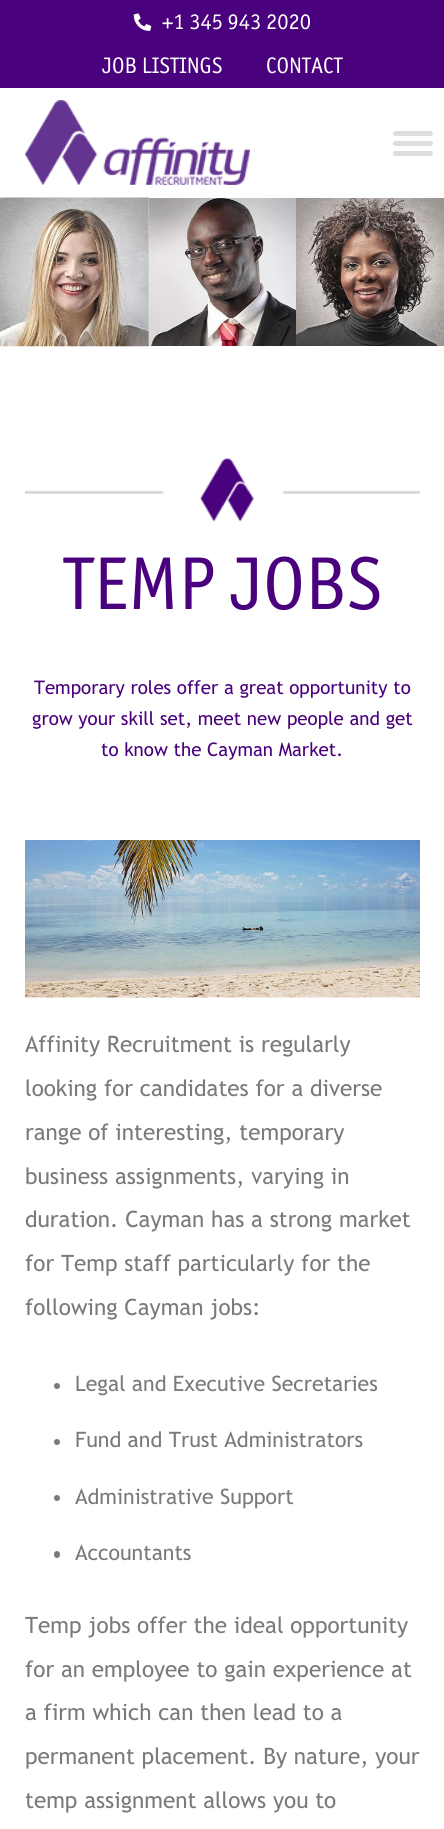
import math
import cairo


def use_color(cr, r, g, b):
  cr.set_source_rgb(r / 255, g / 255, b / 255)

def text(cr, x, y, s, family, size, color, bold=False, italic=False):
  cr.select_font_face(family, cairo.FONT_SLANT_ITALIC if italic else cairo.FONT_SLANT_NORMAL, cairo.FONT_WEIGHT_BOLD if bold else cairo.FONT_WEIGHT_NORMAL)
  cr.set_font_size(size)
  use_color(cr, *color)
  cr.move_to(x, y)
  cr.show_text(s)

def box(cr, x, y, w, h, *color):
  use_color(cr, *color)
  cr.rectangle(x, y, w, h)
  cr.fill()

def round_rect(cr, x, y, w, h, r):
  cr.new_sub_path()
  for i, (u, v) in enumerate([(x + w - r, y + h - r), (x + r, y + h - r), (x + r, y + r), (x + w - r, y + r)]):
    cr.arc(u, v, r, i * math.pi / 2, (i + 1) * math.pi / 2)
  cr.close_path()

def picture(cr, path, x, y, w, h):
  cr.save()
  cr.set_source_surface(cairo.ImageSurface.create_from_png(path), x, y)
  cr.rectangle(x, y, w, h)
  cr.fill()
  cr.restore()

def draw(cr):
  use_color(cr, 255, 255, 255)
  cr.paint()
  box(cr, 0, 0, 444, 88, 74, 1, 125)
  picture(cr, "img_01.png", 133, 13, 19, 18)
  picture(cr, "img_02.png", 25, 100, 225, 85)
  use_color(cr, 221, 221, 221)
  round_rect(cr, 393, 131, 40, 5, 2.5)
  cr.fill()
  round_rect(cr, 393, 141, 40, 5, 2.5)
  cr.fill()
  round_rect(cr, 393, 151, 40, 5, 2.5)
  cr.fill()
  picture(cr, "img_03.png", 0, 197, 149, 150)
  picture(cr, "img_04.png", 149, 198, 147, 148)
  picture(cr, "img_05.png", 296, 198, 148, 148)
  picture(cr, "img_06.png", 25, 458, 395, 64)
  picture(cr, "img_07.png", 25, 840, 395, 158)
  use_color(cr, 122, 122, 122)
  cr.arc(57, 1386, 3, 0, 2 * math.pi)
  cr.fill()
  cr.arc(57, 1442, 3, 0, 2 * math.pi)
  cr.fill()
  cr.arc(57, 1498, 3, 0, 2 * math.pi)
  cr.fill()
  round_rect(cr, 54, 1551, 6, 7, 3)
  cr.fill()
  text(cr, 162, 29, "+1 345 943 2020", "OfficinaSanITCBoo", 22.5, (255, 255, 255))
  text(cr, 102, 73, "JOB LISTINGS", "OfficinaSanITCBoo", 22.5, (255, 255, 255))
  text(cr, 266, 73, "CONTACT", "OfficinaSanITCBoo", 22.5, (255, 255, 255))
  text(cr, 63, 609, "TEMP JOBS", "OfficinaSanITCBoo", 75, (74, 1, 125))
  text(cr, 34, 694, "Temporary roles offer a great opportunity to", "Trebuchet MS", 18.75, (74, 1, 125))
  text(cr, 32, 725, "grow your skill set, meet new people and get", "Trebuchet MS", 18.75, (74, 1, 125))
  text(cr, 101, 756, "to know the Cayman Market.", "Trebuchet MS", 18.75, (74, 1, 125))
  text(cr, 25, 1052, "Affinity Recruitment is regularly", "Trebuchet MS", 22.5, (122, 122, 122))
  text(cr, 25, 1096, "looking for candidates for a diverse", "Trebuchet MS", 22.5, (122, 122, 122))
  text(cr, 25, 1140, "range of interesting, temporary", "Trebuchet MS", 22.5, (122, 122, 122))
  text(cr, 25, 1184, "business assignments, varying in", "Trebuchet MS", 22.5, (122, 122, 122))
  text(cr, 25, 1227, "duration. Cayman has a strong market", "Trebuchet MS", 22.5, (122, 122, 122))
  text(cr, 25, 1271, "for Temp staff particularly for the", "Trebuchet MS", 22.5, (122, 122, 122))
  text(cr, 25, 1315, "following Cayman jobs:", "Trebuchet MS", 22.5, (122, 122, 122))
  text(cr, 75, 1391, "Legal and Executive Secretaries", "Trebuchet MS", 21.25, (122, 122, 122))
  text(cr, 75, 1447, "Fund and Trust Administrators", "Trebuchet MS", 21.25, (122, 122, 122))
  text(cr, 75, 1504, "Administrative Support", "Trebuchet MS", 21.25, (122, 122, 122))
  text(cr, 75, 1560, "Accountants", "Trebuchet MS", 21.25, (122, 122, 122))
  text(cr, 25, 1633, "Temp jobs offer the ideal opportunity", "Trebuchet MS", 22.5, (122, 122, 122))
  text(cr, 25, 1677, "for an employee to gain experience at", "Trebuchet MS", 22.5, (122, 122, 122))
  text(cr, 25, 1720, "a firm which can then lead to a", "Trebuchet MS", 22.5, (122, 122, 122))
  text(cr, 25, 1764, "permanent placement. By nature, your", "Trebuchet MS", 22.5, (122, 122, 122))
  text(cr, 25, 1808, "temp assignment allows you to", "Trebuchet MS", 22.5, (122, 122, 122))


surface = cairo.ImageSurface(cairo.FORMAT_RGB24, 444, 1829)
cr = cairo.Context(surface)
options = cairo.FontOptions()
options.set_hint_metrics(cairo.HINT_METRICS_OFF)
options.set_hint_style(cairo.HINT_STYLE_NONE)
cr.set_font_options(options)
cr.set_miter_limit(4)
draw(cr)
surface.write_to_png("out.png")
